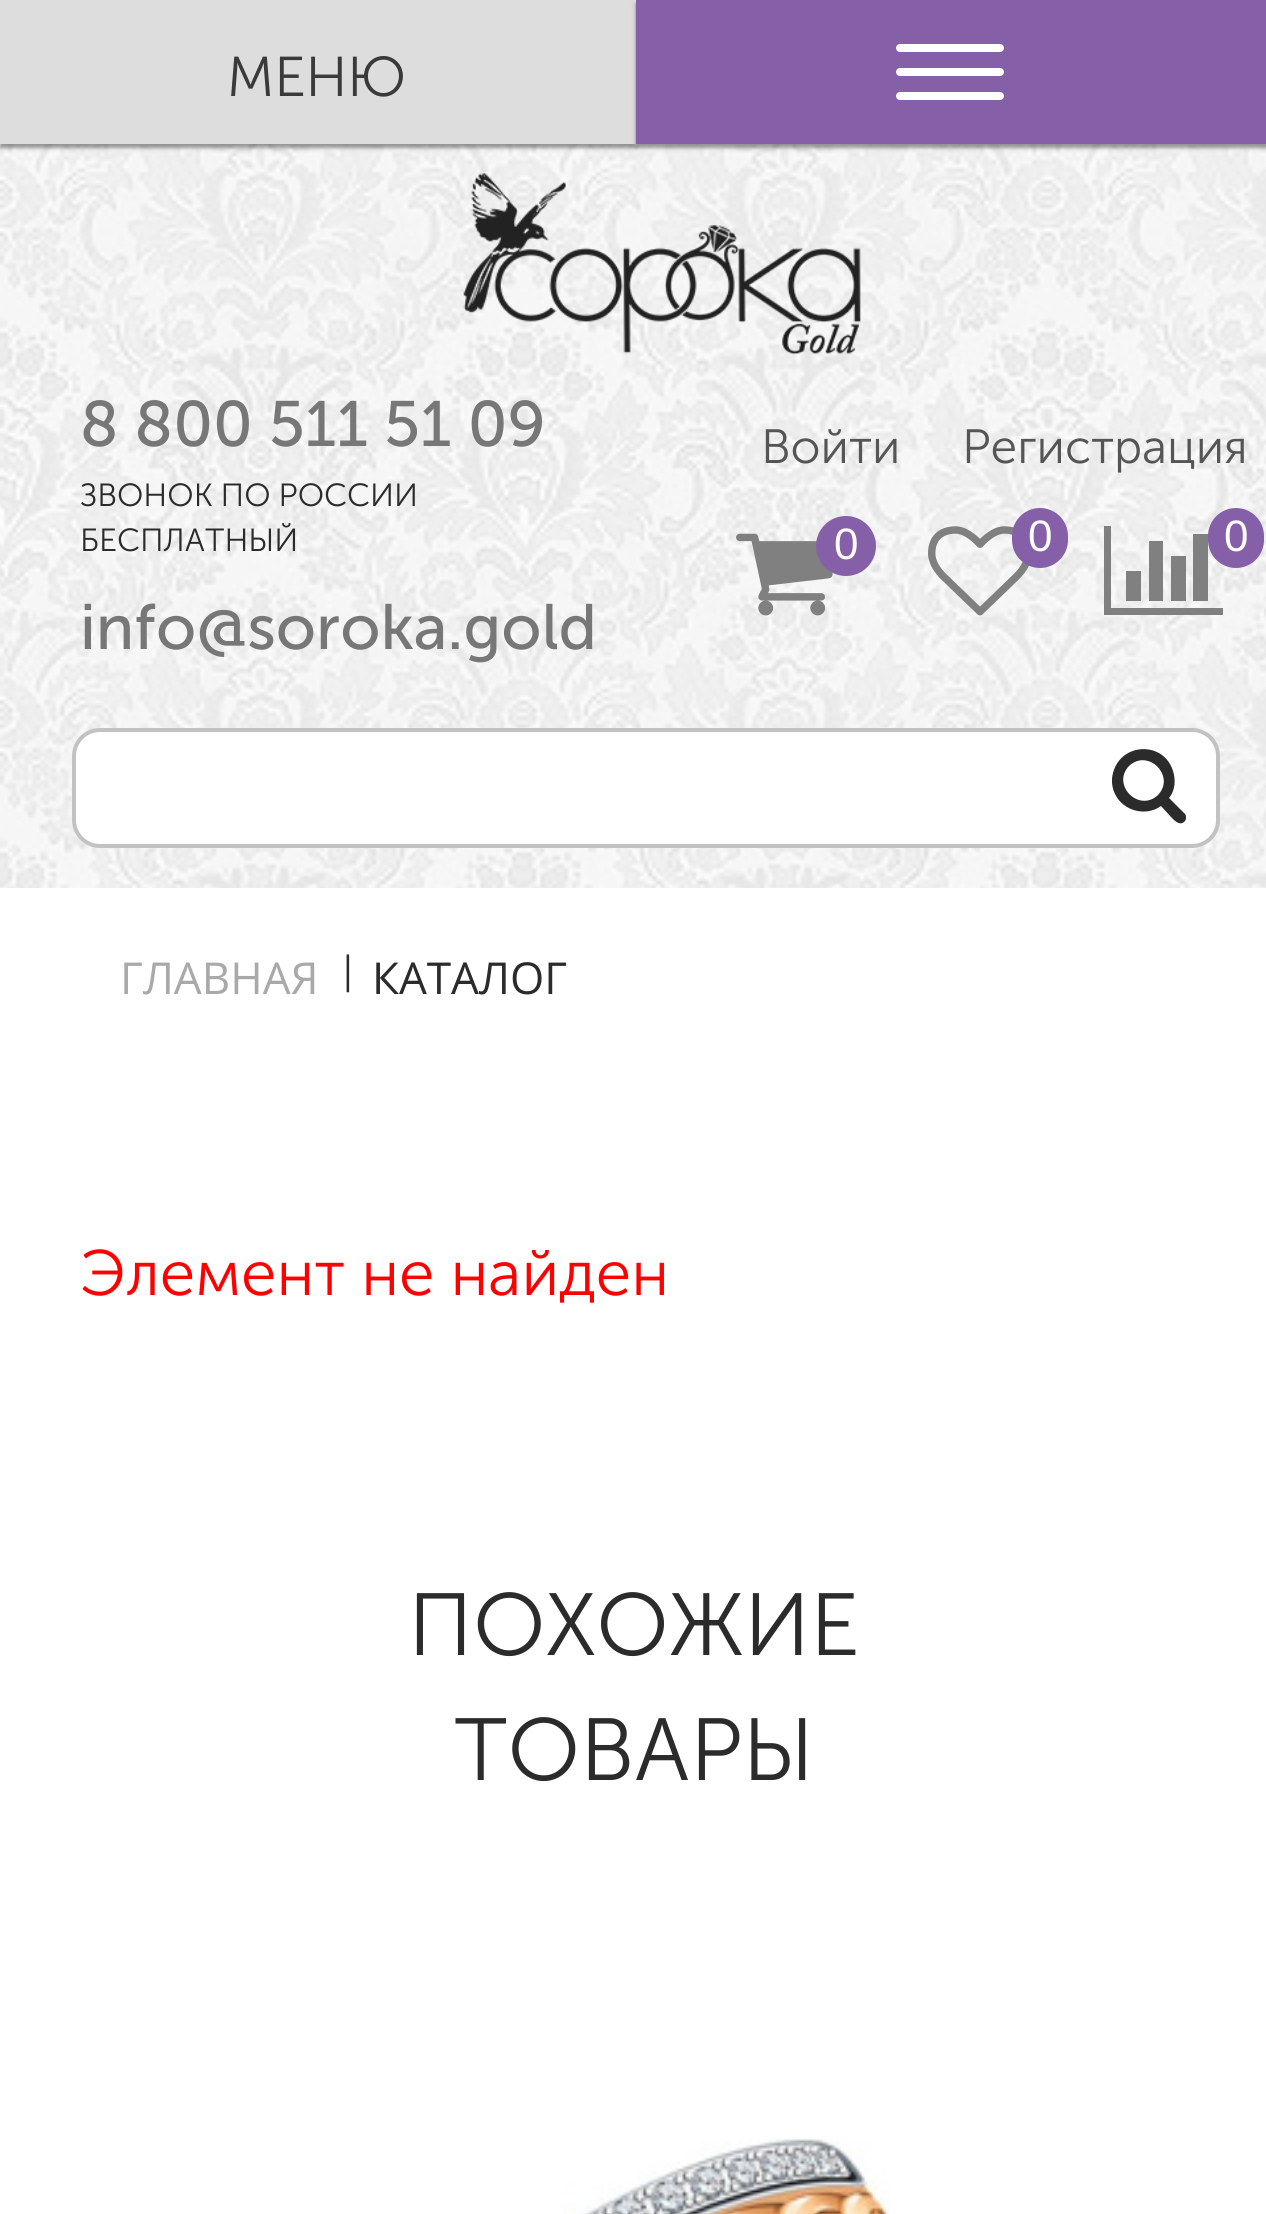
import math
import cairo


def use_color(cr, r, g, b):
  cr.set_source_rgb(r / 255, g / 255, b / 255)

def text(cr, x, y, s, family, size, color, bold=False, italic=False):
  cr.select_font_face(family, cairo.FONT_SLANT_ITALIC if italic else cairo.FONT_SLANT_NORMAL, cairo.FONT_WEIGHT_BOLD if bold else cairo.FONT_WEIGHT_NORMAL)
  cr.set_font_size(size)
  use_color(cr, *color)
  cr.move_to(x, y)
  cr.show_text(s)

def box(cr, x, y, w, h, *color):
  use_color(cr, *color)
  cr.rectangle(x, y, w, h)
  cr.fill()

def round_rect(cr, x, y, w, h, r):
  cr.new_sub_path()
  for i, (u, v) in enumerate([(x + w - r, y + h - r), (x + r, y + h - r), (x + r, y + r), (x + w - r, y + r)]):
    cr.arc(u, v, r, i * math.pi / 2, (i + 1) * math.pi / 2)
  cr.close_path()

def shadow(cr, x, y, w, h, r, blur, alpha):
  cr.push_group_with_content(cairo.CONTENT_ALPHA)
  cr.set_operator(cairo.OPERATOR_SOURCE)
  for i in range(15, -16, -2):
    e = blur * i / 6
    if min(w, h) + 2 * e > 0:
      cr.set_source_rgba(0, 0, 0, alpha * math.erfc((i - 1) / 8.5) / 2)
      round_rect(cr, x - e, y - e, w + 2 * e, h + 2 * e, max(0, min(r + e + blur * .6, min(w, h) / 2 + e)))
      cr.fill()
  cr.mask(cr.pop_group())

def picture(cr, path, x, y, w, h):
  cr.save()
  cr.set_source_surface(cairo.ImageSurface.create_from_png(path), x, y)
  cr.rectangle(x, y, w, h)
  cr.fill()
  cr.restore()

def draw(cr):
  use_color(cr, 255, 255, 255)
  cr.paint()
  picture(cr, "img_01.png", 0, 144, 1266, 744)
  use_color(cr, 0, 0, 0)
  shadow(cr, 0, 4, 636, 144, 0, 2, 0.4)
  box(cr, 0, 0, 636, 144, 221, 221, 221)
  use_color(cr, 0, 0, 0)
  shadow(cr, 636, 4, 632, 144, 0, 2, 0.4)
  box(cr, 636, 0, 630, 144, 133, 96, 168)
  use_color(cr, 255, 255, 255)
  round_rect(cr, 896, 44, 108, 8, 4)
  cr.fill()
  round_rect(cr, 896, 68, 108, 8, 4)
  cr.fill()
  round_rect(cr, 896, 92, 108, 8, 4)
  cr.fill()
  picture(cr, "img_02.png", 463, 173, 398, 181)
  picture(cr, "img_03.png", 736, 533, 97, 83)
  use_color(cr, 133, 96, 168)
  cr.arc(846, 546, 30, 0, 2 * math.pi)
  cr.fill()
  picture(cr, "img_04.png", 928, 526, 102, 90)
  round_rect(cr, 1012, 508, 56, 60, 28)
  cr.fill()
  use_color(cr, 128, 128, 128)
  cr.new_path()
  cr.move_to(1141, 571)
  cr.line_to(1141, 601)
  cr.line_to(1126, 601)
  cr.line_to(1126, 571)
  cr.close_path()
  cr.move_to(1163, 541)
  cr.line_to(1163, 601)
  cr.line_to(1149, 601)
  cr.line_to(1149, 541)
  cr.close_path()
  cr.move_to(1223, 608)
  cr.line_to(1223, 615)
  cr.line_to(1104, 615)
  cr.line_to(1104, 526)
  cr.line_to(1111, 526)
  cr.line_to(1111, 608)
  cr.close_path()
  cr.move_to(1186, 556)
  cr.line_to(1186, 601)
  cr.line_to(1171, 601)
  cr.line_to(1171, 556)
  cr.close_path()
  cr.move_to(1208, 534)
  cr.line_to(1208, 601)
  cr.line_to(1193, 601)
  cr.line_to(1193, 534)
  cr.close_path()
  cr.fill()
  use_color(cr, 133, 96, 168)
  round_rect(cr, 1208, 508, 56, 60, 28)
  cr.fill()
  use_color(cr, 255, 255, 255)
  round_rect(cr, 74, 730, 1144, 116, 26)
  cr.fill_preserve()
  use_color(cr, 194, 194, 194)
  cr.set_line_width(4)
  cr.stroke()
  use_color(cr, 43, 43, 43)
  cr.new_path()
  cr.move_to(1158, 795)
  cr.curve_to(1176, 776, 1148, 748, 1129, 766)
  cr.curve_to(1111, 785, 1139, 813, 1158, 795)
  cr.close_path()
  cr.move_to(1186, 818)
  cr.curve_to(1186, 820, 1185, 821, 1184, 822)
  cr.curve_to(1179, 826, 1174, 820, 1171, 817)
  cr.line_to(1161, 806)
  cr.curve_to(1146, 817, 1123, 811, 1115, 794)
  cr.curve_to(1112, 788, 1111, 780, 1113, 773)
  cr.curve_to(1121, 742, 1164, 741, 1173, 771)
  cr.curve_to(1176, 780, 1175, 791, 1169, 798)
  cr.line_to(1185, 814)
  cr.curve_to(1186, 815, 1186, 816, 1186, 818)
  cr.close_path()
  cr.fill()
  picture(cr, "img_05.png", 563, 2138, 327, 76)
  text(cr, 227, 96, "МЕНЮ", "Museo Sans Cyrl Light", 56, (58, 58, 58))
  text(cr, 80, 446, "8 800 511 51 09", "Museo Sans Cyrl", 64, (119, 119, 119))
  text(cr, 80, 506, "ЗВОНОК ПО РОССИИ", "Museo Sans Cyrl Light", 32, (43, 43, 43))
  text(cr, 80, 551, "БЕСПЛАТНЫЙ", "Museo Sans Cyrl Light", 32, (43, 43, 43))
  text(cr, 80, 649, "info@soroka.gold", "Museo Sans Cyrl", 64, (119, 119, 119))
  text(cr, 761, 463, "Войти", "Museo Sans Cyrl Light", 48, (85, 85, 85))
  text(cr, 962, 463, "Регистрация", "Museo Sans Cyrl Light", 48, (85, 85, 85))
  text(cr, 834, 559, "0", "Liberation Sans", 44, (255, 255, 255))
  text(cr, 1028, 551, "0", "Liberation Sans", 44, (255, 255, 255))
  text(cr, 1224, 551, "0", "Liberation Sans", 44, (255, 255, 255))
  text(cr, 120, 994, "ГЛАВНАЯ", "Open Sans", 44, (169, 169, 169))
  text(cr, 343, 986, "|", "Museo Sans Cyrl Light", 40, (43, 43, 43))
  text(cr, 372, 994, "КАТАЛОГ", "Open Sans", 44, (43, 43, 43))
  text(cr, 80, 1295, "Элемент не найден", "Museo Sans Cyrl Light", 64, (255, 0, 0))
  text(cr, 408, 1655, "ПОХОЖИЕ", "Museo Sans Cyrl Light", 88, (43, 43, 43))
  text(cr, 454, 1780, "ТОВАРЫ", "Museo Sans Cyrl Light", 88, (43, 43, 43))


surface = cairo.ImageSurface(cairo.FORMAT_RGB24, 1266, 2214)
cr = cairo.Context(surface)
options = cairo.FontOptions()
options.set_hint_metrics(cairo.HINT_METRICS_OFF)
options.set_hint_style(cairo.HINT_STYLE_NONE)
cr.set_font_options(options)
cr.set_miter_limit(4)
draw(cr)
surface.write_to_png("out.png")
